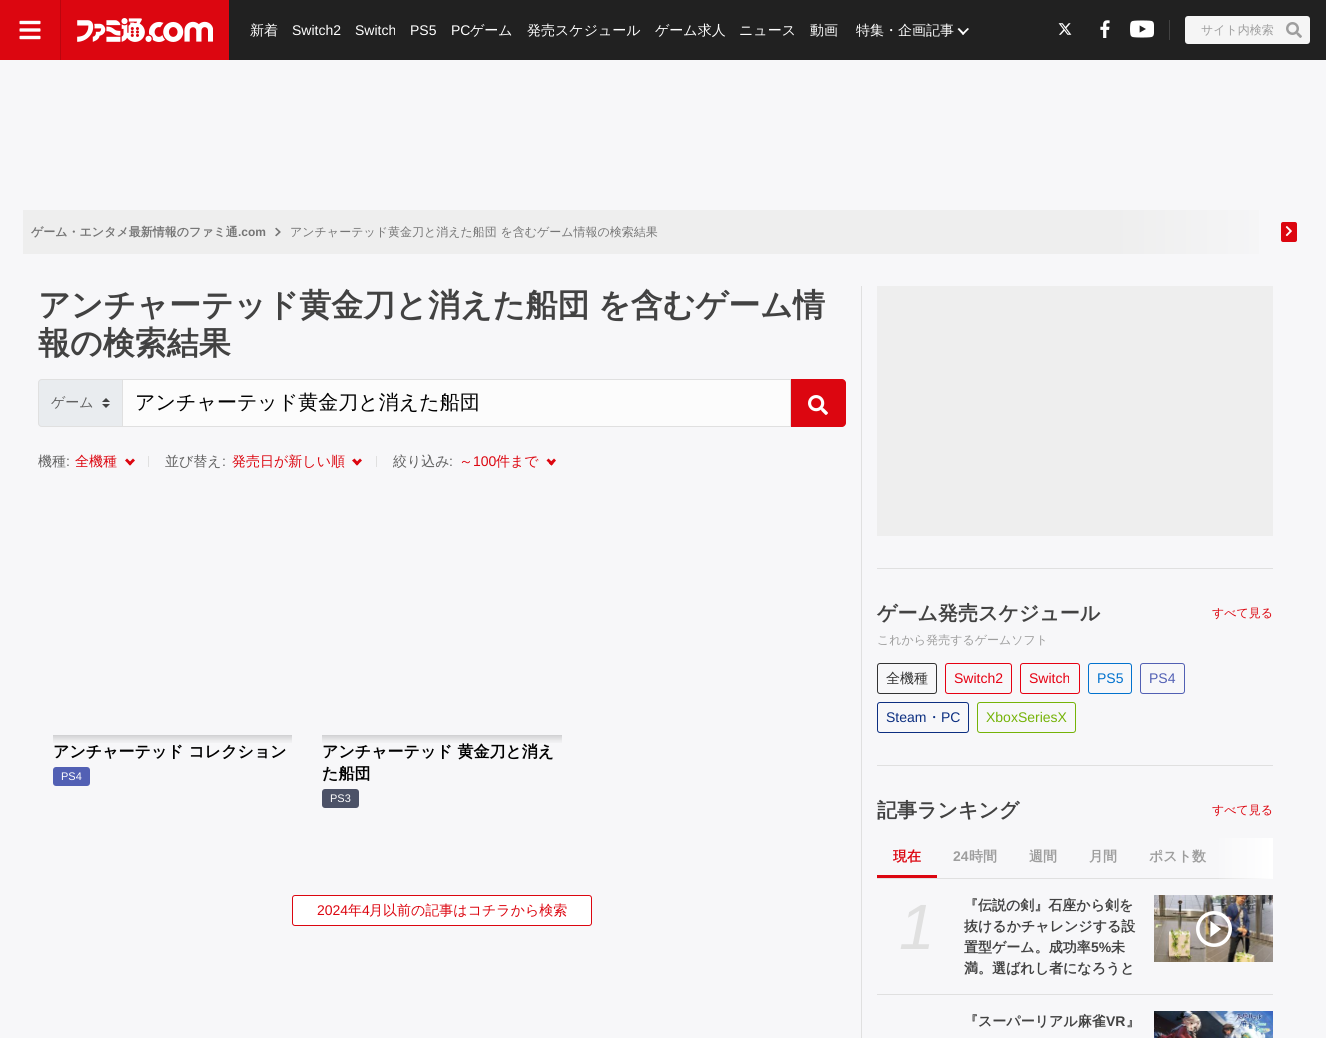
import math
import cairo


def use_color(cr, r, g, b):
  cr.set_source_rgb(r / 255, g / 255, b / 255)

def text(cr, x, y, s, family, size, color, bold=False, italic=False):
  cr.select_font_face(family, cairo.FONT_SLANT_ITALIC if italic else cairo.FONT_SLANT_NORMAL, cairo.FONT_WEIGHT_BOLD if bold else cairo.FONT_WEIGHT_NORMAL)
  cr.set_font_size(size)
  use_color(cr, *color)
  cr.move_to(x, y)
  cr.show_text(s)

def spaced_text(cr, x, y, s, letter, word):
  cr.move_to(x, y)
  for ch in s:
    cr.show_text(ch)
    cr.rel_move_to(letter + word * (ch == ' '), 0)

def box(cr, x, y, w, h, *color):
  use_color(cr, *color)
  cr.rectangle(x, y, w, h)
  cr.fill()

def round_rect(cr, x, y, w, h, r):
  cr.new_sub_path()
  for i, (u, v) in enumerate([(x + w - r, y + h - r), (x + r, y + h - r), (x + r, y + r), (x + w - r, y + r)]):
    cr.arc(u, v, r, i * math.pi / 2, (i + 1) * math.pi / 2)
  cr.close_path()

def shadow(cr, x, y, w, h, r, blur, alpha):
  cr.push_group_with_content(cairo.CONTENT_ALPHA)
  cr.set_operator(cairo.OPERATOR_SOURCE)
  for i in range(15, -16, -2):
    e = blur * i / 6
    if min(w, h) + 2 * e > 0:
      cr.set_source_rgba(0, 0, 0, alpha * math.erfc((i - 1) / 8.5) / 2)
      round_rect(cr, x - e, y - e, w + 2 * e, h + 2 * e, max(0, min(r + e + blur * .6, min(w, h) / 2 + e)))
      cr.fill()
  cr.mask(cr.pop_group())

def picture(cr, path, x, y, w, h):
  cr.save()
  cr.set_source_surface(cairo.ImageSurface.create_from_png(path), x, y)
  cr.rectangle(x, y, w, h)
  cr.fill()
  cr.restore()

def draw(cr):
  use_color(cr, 247, 247, 249)
  cr.paint()
  box(cr, 0, 0, 229, 60, 220, 6, 16)
  picture(cr, "img_01.png", 19, 20, 22, 20)
  box(cr, 60, 0, 1, 60, 187, 5, 14)
  picture(cr, "img_02.png", 77, 18, 136, 24)
  box(cr, 229, 0, 1097, 60, 33, 33, 33)
  use_color(cr, 255, 255, 255)
  cr.new_path()
  cr.move_to(962, 33.5)
  cr.line_to(967.5, 28)
  cr.line_to(969, 29)
  cr.line_to(963, 35)
  cr.close_path()
  cr.fill()
  cr.new_path()
  cr.move_to(957.5, 29)
  cr.line_to(959, 28)
  cr.line_to(964.5, 33.5)
  cr.line_to(963, 35)
  cr.close_path()
  cr.fill()
  picture(cr, "img_03.png", 1058, 23, 14, 12)
  picture(cr, "img_04.png", 1100, 20, 10, 18)
  picture(cr, "img_05.png", 1130, 20, 24, 18)
  box(cr, 1169, 20, 1, 20, 66, 66, 66)
  use_color(cr, 245, 245, 245)
  round_rect(cr, 1185, 16, 125, 28, 3)
  cr.fill()
  picture(cr, "img_06.png", 1286, 22, 16, 16)
  box(cr, 23, 210, 1088, 44, 238, 238, 238)
  picture(cr, "img_07.png", 275, 227, 6, 10)
  use_color(cr, 220, 6, 16)
  round_rect(cr, 1281, 222, 16, 20, 2)
  cr.fill()
  picture(cr, "img_08.png", 1285, 226, 7, 11)
  gradient = cairo.LinearGradient(1111, 232, 1303, 232)
  gradient.add_color_stop_rgba(0, 0.933, 0.933, 0.933, 1)
  gradient.add_color_stop_rgba(1, 0.969, 0.969, 0.976, 1)
  cr.set_source(gradient)
  cr.rectangle(1111, 210, 148, 44)
  cr.fill()
  use_color(cr, 233, 236, 239)
  cr.new_path()
  cr.move_to(42, 379)
  cr.line_to(123, 379)
  cr.line_to(123, 427)
  cr.line_to(42, 427)
  cr.curve_to(40, 427, 38, 425, 38, 423)
  cr.line_to(38, 383)
  cr.curve_to(38, 381, 40, 379, 42, 379)
  cr.close_path()
  cr.fill()
  picture(cr, "img_09.png", 102, 398, 8, 10)
  cr.new_path()
  cr.move_to(42, 379.5)
  cr.line_to(122.5, 379.5)
  cr.line_to(122.5, 426.5)
  cr.line_to(42, 426.5)
  cr.curve_to(40, 426.5, 38.5, 425, 38.5, 423)
  cr.line_to(38.5, 383)
  cr.curve_to(38.5, 381, 40, 379.5, 42, 379.5)
  cr.close_path()
  use_color(cr, 224, 224, 224)
  cr.set_line_width(1)
  cr.stroke()
  use_color(cr, 220, 6, 16)
  cr.new_path()
  cr.move_to(790, 379)
  cr.line_to(842, 379)
  cr.curve_to(844, 379, 846, 381, 846, 383)
  cr.line_to(846, 423)
  cr.curve_to(846, 425, 844, 427, 842, 427)
  cr.line_to(790, 427)
  cr.close_path()
  cr.fill()
  use_color(cr, 252, 252, 252)
  cr.rectangle(122.5, 379.5, 668, 47)
  cr.fill_preserve()
  use_color(cr, 224, 224, 224)
  cr.stroke()
  picture(cr, "img_10.png", 808, 395, 20, 20)
  use_color(cr, 220, 6, 16)
  cr.new_path()
  cr.move_to(128, 463.5)
  cr.line_to(133, 458.5)
  cr.line_to(135, 460.5)
  cr.line_to(130, 465.5)
  cr.close_path()
  cr.fill()
  cr.new_path()
  cr.move_to(125, 460.5)
  cr.line_to(127, 458.5)
  cr.line_to(132, 463.5)
  cr.line_to(130, 465.5)
  cr.close_path()
  cr.fill()
  box(cr, 148, 456, 1, 11, 224, 224, 224)
  use_color(cr, 220, 6, 16)
  cr.new_path()
  cr.move_to(355, 463.5)
  cr.line_to(360, 458.5)
  cr.line_to(362, 460.5)
  cr.line_to(357, 465.5)
  cr.close_path()
  cr.fill()
  cr.new_path()
  cr.move_to(352, 460.5)
  cr.line_to(354.5, 458.5)
  cr.line_to(359, 463.5)
  cr.line_to(357, 465.5)
  cr.close_path()
  cr.fill()
  box(cr, 376, 456, 1, 11, 224, 224, 224)
  use_color(cr, 220, 6, 16)
  cr.new_path()
  cr.move_to(549, 463.5)
  cr.line_to(554, 458.5)
  cr.line_to(556, 460.5)
  cr.line_to(551.5, 465.5)
  cr.close_path()
  cr.fill()
  cr.new_path()
  cr.move_to(546.5, 460.5)
  cr.line_to(548.5, 458.5)
  cr.line_to(553.5, 463.5)
  cr.line_to(551.5, 465.5)
  cr.close_path()
  cr.fill()
  cr.save()
  cr.rectangle(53, 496, 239, 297)
  cr.clip()
  cr.rectangle(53, 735, 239, 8)
  cr.clip()
  use_color(cr, 0, 0, 0)
  shadow(cr, 51, 495, 243, 243, 0, 4, 0.2)
  cr.restore()
  use_color(cr, 82, 96, 180)
  round_rect(cr, 53, 767, 37, 19, 3)
  cr.fill()
  cr.save()
  cr.rectangle(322, 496, 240, 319)
  cr.clip()
  cr.rectangle(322, 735, 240, 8)
  cr.clip()
  use_color(cr, 0, 0, 0)
  shadow(cr, 320, 495, 244, 243, 0, 4, 0.2)
  cr.restore()
  use_color(cr, 76, 82, 103)
  round_rect(cr, 322, 789, 37, 19, 3)
  cr.fill()
  use_color(cr, 255, 255, 255)
  round_rect(cr, 292.5, 895.5, 299, 30, 2.5)
  cr.fill_preserve()
  use_color(cr, 220, 6, 16)
  cr.stroke()
  box(cr, 861, 286, 1, 752, 224, 224, 224)
  box(cr, 877, 286, 396, 250, 238, 238, 238)
  box(cr, 877, 568, 396, 1, 224, 224, 224)
  round_rect(cr, 877.5, 663.5, 59, 30, 2.5)
  use_color(cr, 51, 51, 51)
  cr.stroke()
  round_rect(cr, 945.5, 663.5, 66, 30, 2.5)
  use_color(cr, 230, 0, 18)
  cr.stroke()
  round_rect(cr, 1020.5, 663.5, 59, 30, 2.5)
  cr.stroke()
  round_rect(cr, 1088.5, 663.5, 43, 30, 2.5)
  use_color(cr, 1, 114, 206)
  cr.stroke()
  round_rect(cr, 1140.5, 663.5, 44, 30, 2.5)
  use_color(cr, 82, 96, 180)
  cr.stroke()
  round_rect(cr, 877.5, 702.5, 91, 30, 2.5)
  use_color(cr, 12, 47, 129)
  cr.stroke()
  round_rect(cr, 977.5, 702.5, 98, 30, 2.5)
  use_color(cr, 117, 179, 8)
  cr.stroke()
  box(cr, 877, 765, 396, 1, 224, 224, 224)
  box(cr, 877, 878, 396, 1, 224, 224, 224)
  box(cr, 877, 875, 60, 3, 220, 6, 16)
  gradient = cairo.LinearGradient(1214, 859, 1273, 859)
  gradient.add_color_stop_rgba(0, 1, 1, 1, 0)
  gradient.add_color_stop_rgba(1, 1, 1, 1, 1)
  cr.set_source(gradient)
  cr.rectangle(1219, 838, 54, 41)
  cr.fill()
  picture(cr, "img_11.png", 1154, 895, 119, 67)
  picture(cr, "img_12.png", 1196, 911, 36, 36)
  box(cr, 877, 994, 396, 1, 224, 224, 224)
  picture(cr, "img_13.png", 1154, 1011, 119, 27)
  text(cr, 250, 35, "新着", "WenQuanYi Zen Hei Medium", 14, (255, 255, 255))
  text(cr, 292, 35, "Switch2", "Liberation Sans", 14, (255, 255, 255))
  text(cr, 355, 35, "Switch", "Liberation Sans", 14, (255, 255, 255))
  text(cr, 410, 35, "PS5", "Liberation Sans", 14, (255, 255, 255))
  text(cr, 451, 35, "PC", "Liberation Sans", 14, (255, 255, 255))
  text(cr, 470, 35, "ゲーム", "WenQuanYi Zen Hei Medium", 14, (255, 255, 255))
  text(cr, 527, 35, "発売スケジュール", "WenQuanYi Zen Hei Medium", 14, (255, 255, 255))
  text(cr, 655, 35, "ゲーム求人", "WenQuanYi Zen Hei Medium", 14, (255, 255, 255))
  text(cr, 739, 35, "ニュース", "WenQuanYi Zen Hei Medium", 14, (255, 255, 255))
  text(cr, 810, 35, "動画", "WenQuanYi Zen Hei Medium", 14, (255, 255, 255))
  text(cr, 856, 35, "特集・企画記事", "WenQuanYi Zen Hei Medium", 14, (255, 255, 255))
  text(cr, 1201, 34, "サイト内検索", "WenQuanYi Zen Hei Medium", 12, (158, 158, 158))
  text(cr, 31, 236, "ゲーム・エンタメ最新情報のファミ通", "WenQuanYi Zen Hei", 12, (117, 117, 117), bold=True)
  text(cr, 238, 236, ".com", "Liberation Sans", 12, (117, 117, 117), bold=True)
  text(cr, 290, 236, "アンチャーテッド黄金刀と消えた船団 を含むゲーム情報の検索結果", "WenQuanYi Zen Hei Medium", 12, (117, 117, 117))
  cr.select_font_face("WenQuanYi Zen Hei", cairo.FONT_SLANT_NORMAL, cairo.FONT_WEIGHT_BOLD)
  cr.set_font_size(32)
  use_color(cr, 66, 66, 66)
  spaced_text(cr, 38, 316, "アンチャーテッド黄金刀と消えた船団 を含むゲーム情", 0, -1)
  text(cr, 38, 354, "報の検索結果", "WenQuanYi Zen Hei", 32, (66, 66, 66), bold=True)
  text(cr, 51, 407, "ゲーム", "WenQuanYi Zen Hei Medium", 14, (97, 97, 97))
  text(cr, 135, 409, "アンチャーテッド黄金刀と消えた船団", "WenQuanYi Zen Hei Medium", 20, (0, 0, 0))
  text(cr, 38, 466, "機種", "WenQuanYi Zen Hei Medium", 14, (97, 97, 97))
  text(cr, 66, 466, ":", "Liberation Sans", 14, (97, 97, 97))
  text(cr, 75, 466, "全機種", "WenQuanYi Zen Hei Medium", 14, (220, 6, 16))
  text(cr, 165, 466, "並び替え", "WenQuanYi Zen Hei Medium", 14, (97, 97, 97))
  text(cr, 222, 466, ":", "Liberation Sans", 14, (97, 97, 97))
  text(cr, 232, 466, "発売日が新しい順", "WenQuanYi Zen Hei Medium", 14, (220, 6, 16))
  text(cr, 393, 466, "絞り込み", "WenQuanYi Zen Hei Medium", 14, (97, 97, 97))
  text(cr, 449, 466, ":", "Liberation Sans", 14, (97, 97, 97))
  text(cr, 459, 466, "～", "WenQuanYi Zen Hei Medium", 14, (220, 6, 16))
  text(cr, 473, 466, "100", "Liberation Sans", 14, (220, 6, 16))
  text(cr, 496, 466, "件まで", "WenQuanYi Zen Hei Medium", 14, (220, 6, 16))
  text(cr, 53, 757, "アンチャーテッド コレクション", "WenQuanYi Zen Hei", 16, (0, 0, 0), bold=True)
  text(cr, 61, 780, "PS4", "Liberation Sans", 11, (255, 255, 255))
  text(cr, 322, 757, "アンチャーテッド 黄金刀と消え", "WenQuanYi Zen Hei", 16, (0, 0, 0), bold=True)
  text(cr, 322, 779, "た船団", "WenQuanYi Zen Hei", 16, (0, 0, 0), bold=True)
  text(cr, 330, 802, "PS3", "Liberation Sans", 11, (255, 255, 255))
  text(cr, 317, 915, "2024", "Liberation Sans", 14, (220, 6, 16))
  text(cr, 348, 915, "年", "WenQuanYi Zen Hei Medium", 14, (220, 6, 16))
  text(cr, 362, 915, "4", "Liberation Sans", 14, (220, 6, 16))
  text(cr, 369, 915, "月以前の記事はコチラから検索", "WenQuanYi Zen Hei Medium", 14, (220, 6, 16))
  text(cr, 877, 620, "ゲーム発売スケジュール", "WenQuanYi Zen Hei", 20, (66, 66, 66), bold=True)
  text(cr, 1212, 617, "すべて見る", "WenQuanYi Zen Hei Medium", 12, (220, 6, 16))
  text(cr, 877, 644, "これから発売するゲームソフト", "WenQuanYi Zen Hei Medium", 12, (158, 158, 158))
  text(cr, 886, 683, "全機種", "WenQuanYi Zen Hei Medium", 14, (51, 51, 51))
  text(cr, 954, 683, "Switch2", "Liberation Sans", 14, (230, 0, 18))
  text(cr, 1029, 683, "Switch", "Liberation Sans", 14, (230, 0, 18))
  text(cr, 1097, 683, "PS5", "Liberation Sans", 14, (1, 114, 206))
  text(cr, 1149, 683, "PS4", "Liberation Sans", 14, (82, 96, 180))
  text(cr, 886, 722, "Steam", "Liberation Sans", 14, (12, 47, 129))
  text(cr, 927, 722, "・", "WenQuanYi Zen Hei Medium", 14, (12, 47, 129))
  text(cr, 941, 722, "PC", "Liberation Sans", 14, (12, 47, 129))
  text(cr, 986, 722, "XboxSeriesX", "Liberation Sans", 14, (117, 179, 8))
  text(cr, 877, 817, "記事ランキング", "WenQuanYi Zen Hei", 20, (66, 66, 66), bold=True)
  text(cr, 1212, 814, "すべて見る", "WenQuanYi Zen Hei Medium", 12, (220, 6, 16))
  text(cr, 893, 861, "現在", "WenQuanYi Zen Hei", 14, (220, 6, 16), bold=True)
  text(cr, 953, 861, "24", "Liberation Sans", 14, (158, 158, 158), bold=True)
  text(cr, 969, 861, "時間", "WenQuanYi Zen Hei", 14, (158, 158, 158), bold=True)
  text(cr, 1029, 861, "週間", "WenQuanYi Zen Hei", 14, (158, 158, 158), bold=True)
  text(cr, 1089, 861, "月間", "WenQuanYi Zen Hei", 14, (158, 158, 158), bold=True)
  text(cr, 1149, 861, "ポスト数", "WenQuanYi Zen Hei", 14, (158, 158, 158), bold=True)
  text(cr, 899, 949, "1", "Liberation Sans", 64, (224, 224, 224), italic=True)
  text(cr, 964, 910, "『伝説の剣』石座から剣を", "WenQuanYi Zen Hei", 14, (66, 66, 66), bold=True)
  text(cr, 964, 931, "抜けるかチャレンジする設", "WenQuanYi Zen Hei", 14, (66, 66, 66), bold=True)
  text(cr, 964, 952, "置型ゲーム。成功率", "WenQuanYi Zen Hei", 14, (66, 66, 66), bold=True)
  text(cr, 1091, 952, "5%", "Liberation Sans", 14, (66, 66, 66), bold=True)
  text(cr, 1111, 952, "未", "WenQuanYi Zen Hei", 14, (66, 66, 66), bold=True)
  text(cr, 964, 973, "満。選ばれし者になろうと", "WenQuanYi Zen Hei", 14, (66, 66, 66), bold=True)
  text(cr, 964, 1026, "『スーパーリアル麻雀", "WenQuanYi Zen Hei", 14, (66, 66, 66), bold=True)
  text(cr, 1106, 1026, "VR", "Liberation Sans", 14, (66, 66, 66), bold=True)
  text(cr, 1126, 1026, "』", "WenQuanYi Zen Hei", 14, (66, 66, 66), bold=True)


surface = cairo.ImageSurface(cairo.FORMAT_RGB24, 1326, 1038)
cr = cairo.Context(surface)
options = cairo.FontOptions()
options.set_hint_metrics(cairo.HINT_METRICS_OFF)
options.set_hint_style(cairo.HINT_STYLE_NONE)
cr.set_font_options(options)
cr.set_miter_limit(4)
draw(cr)
surface.write_to_png("out.png")
